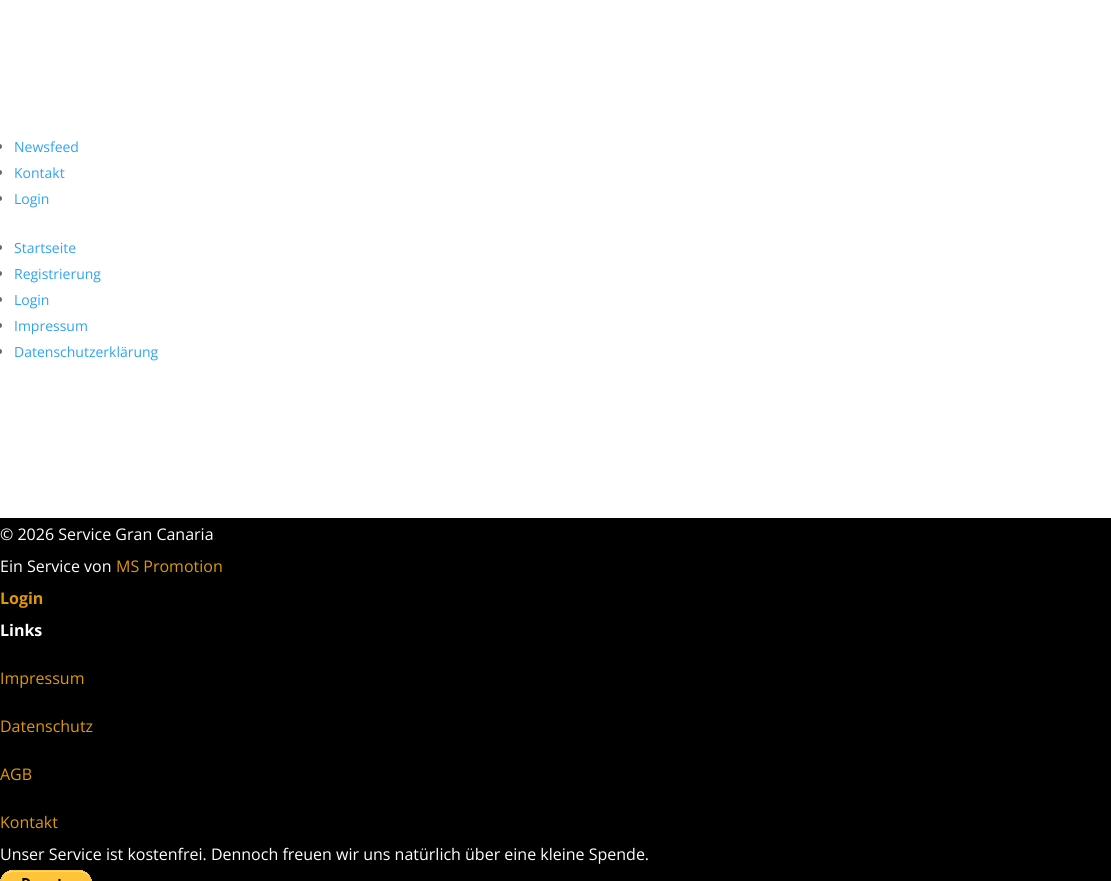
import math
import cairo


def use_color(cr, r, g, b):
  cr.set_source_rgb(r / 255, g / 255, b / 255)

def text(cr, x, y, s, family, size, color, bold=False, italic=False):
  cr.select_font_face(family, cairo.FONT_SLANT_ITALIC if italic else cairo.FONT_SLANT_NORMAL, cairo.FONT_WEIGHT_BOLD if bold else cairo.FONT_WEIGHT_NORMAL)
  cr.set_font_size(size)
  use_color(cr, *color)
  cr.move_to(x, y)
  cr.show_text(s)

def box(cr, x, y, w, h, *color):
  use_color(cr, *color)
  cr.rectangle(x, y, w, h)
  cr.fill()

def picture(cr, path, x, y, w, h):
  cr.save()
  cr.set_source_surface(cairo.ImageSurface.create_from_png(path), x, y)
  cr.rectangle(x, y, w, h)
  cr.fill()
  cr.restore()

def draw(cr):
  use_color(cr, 255, 255, 255)
  cr.paint()
  use_color(cr, 102, 102, 102)
  cr.arc(-0.5, 146.5, 2.5, 0, 2 * math.pi)
  cr.fill()
  cr.arc(-0.5, 172.5, 2.5, 0, 2 * math.pi)
  cr.fill()
  cr.arc(-0.5, 198.5, 2.5, 0, 2 * math.pi)
  cr.fill()
  cr.arc(-0.5, 247.5, 2.5, 0, 2 * math.pi)
  cr.fill()
  cr.arc(-0.5, 273.5, 2.5, 0, 2 * math.pi)
  cr.fill()
  cr.arc(-0.5, 299.5, 2.5, 0, 2 * math.pi)
  cr.fill()
  cr.arc(-0.5, 325.5, 2.5, 0, 2 * math.pi)
  cr.fill()
  cr.arc(-0.5, 351.5, 2.5, 0, 2 * math.pi)
  cr.fill()
  box(cr, 0, 518, 1111, 363, 0, 0, 0)
  picture(cr, "img_01.png", 0, 870, 92, 11)
  text(cr, 14, 152, "Newsfeed", "Open Sans", 14, (46, 163, 242))
  text(cr, 14, 178, "Kontakt", "Open Sans", 14, (46, 163, 242))
  text(cr, 14, 204, "Login", "Open Sans", 14, (46, 163, 242))
  text(cr, 14, 253, "Startseite", "Open Sans", 14, (46, 163, 242))
  text(cr, 14, 279, "Registrierung", "Open Sans", 14, (46, 163, 242))
  text(cr, 14, 305, "Login", "Open Sans", 14, (46, 163, 242))
  text(cr, 14, 331, "Impressum", "Open Sans", 14, (46, 163, 242))
  text(cr, 14, 357, "Datenschutzerklärung", "Open Sans", 14, (46, 163, 242))
  text(cr, 0, 540, "© 2026 Service Gran Canaria", "Open Sans", 16, (255, 255, 255))
  text(cr, 0, 572, "Ein Service von", "Open Sans", 16, (255, 255, 255))
  text(cr, 116, 572, "MS Promotion", "Open Sans", 16, (224, 153, 0))
  text(cr, 0, 604, "Login", "Open Sans", 16, (224, 153, 0), bold=True)
  text(cr, 0, 636, "Links", "Open Sans", 16, (255, 255, 255), bold=True)
  text(cr, 0, 684, "Impressum", "Open Sans", 16, (224, 153, 0))
  text(cr, 0, 732, "Datenschutz", "Open Sans", 16, (224, 153, 0))
  text(cr, 0, 780, "AGB", "Open Sans", 16, (224, 153, 0))
  text(cr, 0, 828, "Kontakt", "Open Sans", 16, (224, 153, 0))
  text(cr, 0, 860, "Unser Service ist kostenfrei. Dennoch freuen wir uns natürlich über eine kleine Spende.", "Open Sans", 16, (255, 255, 255))


surface = cairo.ImageSurface(cairo.FORMAT_RGB24, 1111, 881)
cr = cairo.Context(surface)
options = cairo.FontOptions()
options.set_hint_metrics(cairo.HINT_METRICS_OFF)
options.set_hint_style(cairo.HINT_STYLE_NONE)
cr.set_font_options(options)
cr.set_miter_limit(4)
draw(cr)
surface.write_to_png("out.png")
